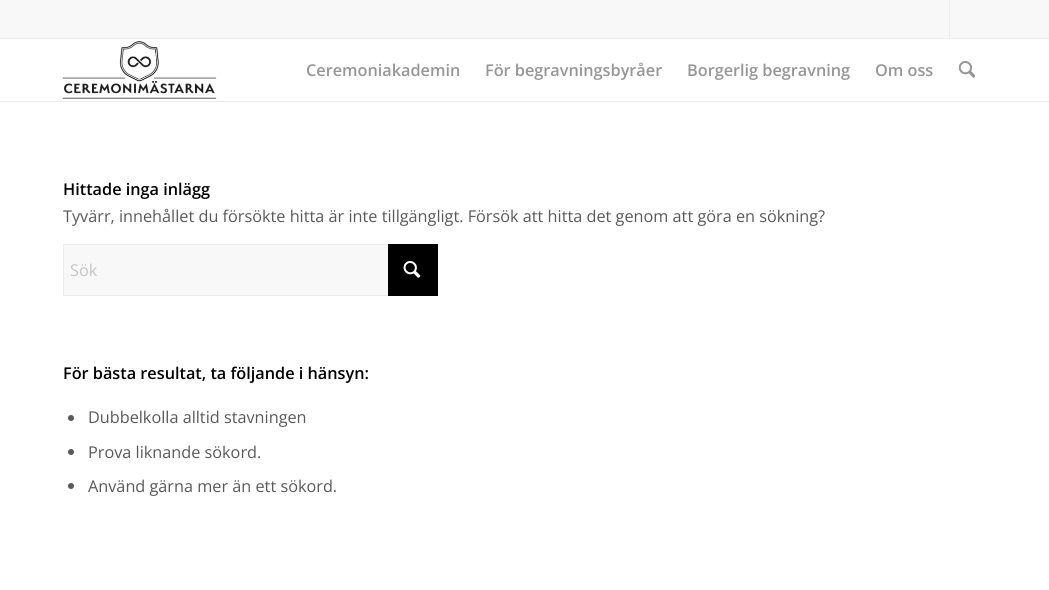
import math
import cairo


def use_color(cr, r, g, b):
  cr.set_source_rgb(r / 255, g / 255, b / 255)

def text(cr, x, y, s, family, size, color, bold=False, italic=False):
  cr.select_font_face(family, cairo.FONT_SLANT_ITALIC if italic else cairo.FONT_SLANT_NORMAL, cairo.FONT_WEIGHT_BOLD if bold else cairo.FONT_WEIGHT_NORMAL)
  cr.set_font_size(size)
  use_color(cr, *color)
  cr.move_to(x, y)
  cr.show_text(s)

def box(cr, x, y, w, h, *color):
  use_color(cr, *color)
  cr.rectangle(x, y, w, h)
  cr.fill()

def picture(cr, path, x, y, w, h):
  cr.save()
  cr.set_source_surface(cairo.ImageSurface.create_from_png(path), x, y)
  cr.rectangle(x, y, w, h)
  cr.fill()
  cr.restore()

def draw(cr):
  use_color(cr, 255, 255, 255)
  cr.paint()
  box(cr, 0, 0, 1049, 38, 248, 248, 248)
  box(cr, 0, 38, 1049, 1, 235, 235, 235)
  box(cr, 949, 0, 1, 38, 235, 235, 235)
  box(cr, 0, 101, 1049, 1, 235, 235, 235)
  picture(cr, "img_01.png", 62, 41, 155, 58)
  picture(cr, "img_02.png", 959, 61, 16, 17)
  box(cr, 64, 245, 324, 50, 248, 248, 248)
  cr.rectangle(63.5, 244.5, 374, 51)
  use_color(cr, 235, 235, 235)
  cr.set_line_width(1)
  cr.stroke()
  box(cr, 388, 244, 50, 52, 0, 0, 0)
  picture(cr, "img_03.png", 403, 261, 18, 17)
  use_color(cr, 89, 89, 89)
  cr.arc(71, 418, 3, 0, 2 * math.pi)
  cr.fill()
  cr.arc(71, 452, 3, 0, 2 * math.pi)
  cr.fill()
  cr.arc(71, 486, 3, 0, 2 * math.pi)
  cr.fill()
  text(cr, 306, 76, "Ceremoniakademin", "Open Sans SemiBold", 16.25, (150, 150, 150))
  text(cr, 485, 76, "För begravningsbyråer", "Open Sans SemiBold", 16.25, (150, 150, 150))
  text(cr, 687, 76, "Borgerlig begravning", "Open Sans SemiBold", 16.25, (150, 150, 150))
  text(cr, 875, 76, "Om oss", "Open Sans SemiBold", 16.25, (150, 150, 150))
  text(cr, 63, 195, "Hittade inga inlägg", "Open Sans SemiBold", 16.25, (0, 0, 0))
  text(cr, 63, 222, "Tyvärr, innehållet du försökte hitta är inte tillgängligt. Försök att hitta det genom att göra en sökning?", "Open Sans", 16.25, (89, 89, 89))
  text(cr, 70, 276, "Sök", "Open Sans", 16.25, (197, 197, 197))
  text(cr, 63, 379, "För bästa resultat, ta följande i hänsyn:", "Open Sans SemiBold", 16.25, (0, 0, 0))
  text(cr, 88, 423, "Dubbelkolla alltid stavningen", "Open Sans", 16.25, (89, 89, 89))
  text(cr, 88, 458, "Prova liknande sökord.", "Open Sans", 16.25, (89, 89, 89))
  text(cr, 88, 492, "Använd gärna mer än ett sökord.", "Open Sans", 16.25, (89, 89, 89))


surface = cairo.ImageSurface(cairo.FORMAT_RGB24, 1049, 590)
cr = cairo.Context(surface)
options = cairo.FontOptions()
options.set_hint_metrics(cairo.HINT_METRICS_OFF)
options.set_hint_style(cairo.HINT_STYLE_NONE)
cr.set_font_options(options)
cr.set_miter_limit(4)
draw(cr)
surface.write_to_png("out.png")
